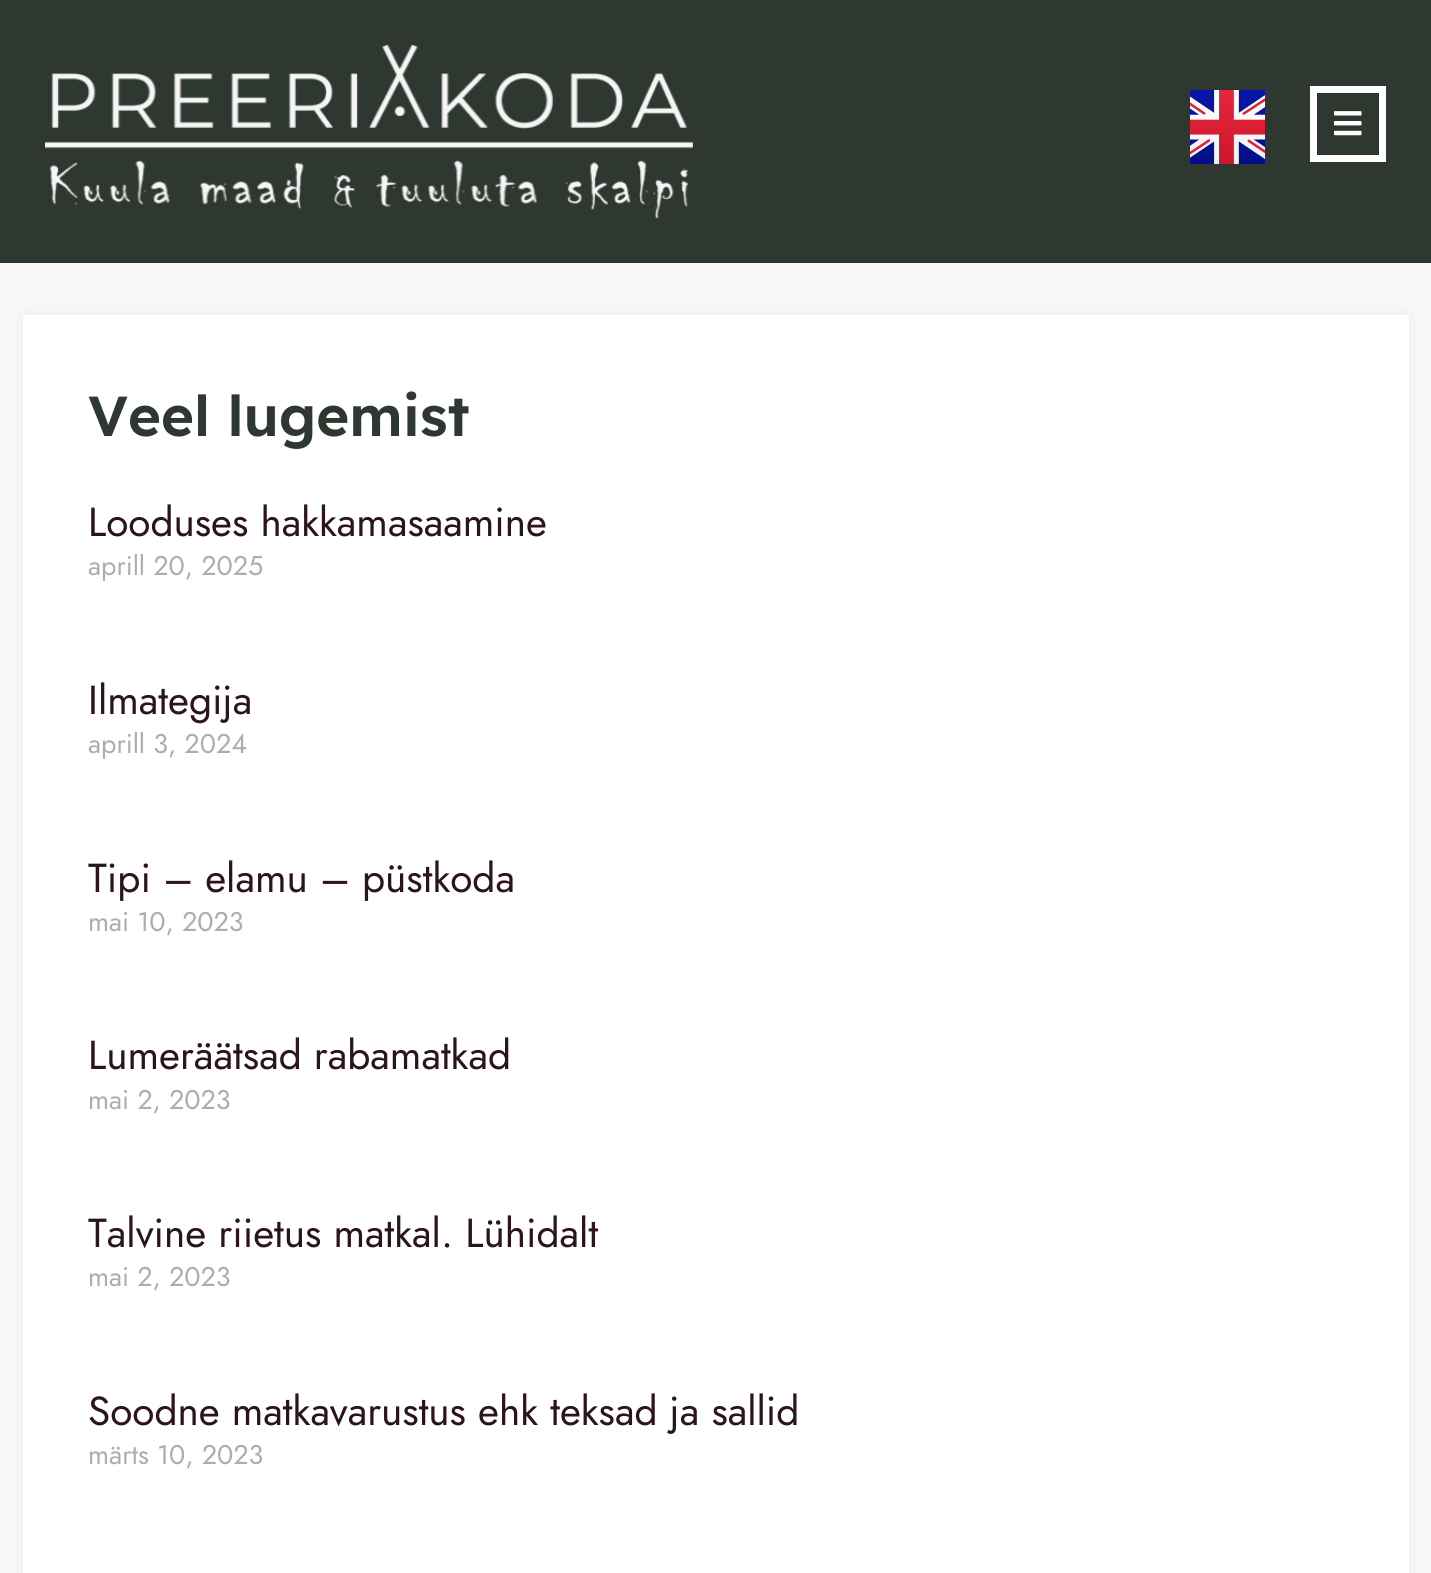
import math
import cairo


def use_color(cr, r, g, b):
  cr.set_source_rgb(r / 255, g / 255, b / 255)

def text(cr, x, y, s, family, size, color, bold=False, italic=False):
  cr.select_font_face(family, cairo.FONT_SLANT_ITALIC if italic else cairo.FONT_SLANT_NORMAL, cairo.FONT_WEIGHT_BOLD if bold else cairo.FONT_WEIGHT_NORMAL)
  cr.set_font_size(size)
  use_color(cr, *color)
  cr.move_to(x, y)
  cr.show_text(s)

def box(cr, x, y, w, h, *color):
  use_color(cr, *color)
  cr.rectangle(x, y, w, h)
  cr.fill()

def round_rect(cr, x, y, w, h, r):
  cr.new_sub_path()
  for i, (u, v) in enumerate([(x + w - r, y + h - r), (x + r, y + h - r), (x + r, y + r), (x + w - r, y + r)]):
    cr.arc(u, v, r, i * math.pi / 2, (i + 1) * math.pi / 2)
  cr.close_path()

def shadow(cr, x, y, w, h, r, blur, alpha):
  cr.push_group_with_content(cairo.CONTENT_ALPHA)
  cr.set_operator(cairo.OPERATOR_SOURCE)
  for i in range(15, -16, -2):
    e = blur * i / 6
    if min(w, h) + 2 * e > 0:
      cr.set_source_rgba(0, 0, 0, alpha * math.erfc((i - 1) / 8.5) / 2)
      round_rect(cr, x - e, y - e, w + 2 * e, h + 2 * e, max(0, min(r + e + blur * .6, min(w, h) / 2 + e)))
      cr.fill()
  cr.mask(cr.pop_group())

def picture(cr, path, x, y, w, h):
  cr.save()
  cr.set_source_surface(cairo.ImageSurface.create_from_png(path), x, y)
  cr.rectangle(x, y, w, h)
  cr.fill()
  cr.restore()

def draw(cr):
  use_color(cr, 249, 249, 249)
  cr.paint()
  box(cr, 0, 0, 1431, 263, 46, 56, 48)
  picture(cr, "img_01.png", 45, 45, 648, 174)
  picture(cr, "img_02.png", 1190, 90, 75, 74)
  cr.rectangle(1313.5, 89.5, 69, 69)
  use_color(cr, 255, 255, 255)
  cr.set_line_width(7)
  cr.stroke()
  picture(cr, "img_03.png", 1333, 111, 29, 25)
  use_color(cr, 0, 0, 0)
  shadow(cr, 23, 315, 1386, 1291, 0, 11, 0.06)
  box(cr, 23, 315, 1386, 1258, 255, 255, 255)
  text(cr, 88, 436, "Veel lugemist", "Lexend SemiBold", 56.25, (46, 56, 48))
  text(cr, 88, 536, "Looduses hakkamasaamine", "Jost", 40.5, (43, 19, 32))
  text(cr, 88, 575, "aprill 20, 2025", "Jost", 27, (173, 173, 173))
  text(cr, 88, 714, "Ilmategija", "Jost", 40.5, (43, 19, 32))
  text(cr, 88, 753, "aprill 3, 2024", "Jost", 27, (173, 173, 173))
  text(cr, 88, 892, "Tipi – elamu – püstkoda", "Jost", 40.5, (43, 19, 32))
  text(cr, 88, 931, "mai 10, 2023", "Jost", 27, (173, 173, 173))
  text(cr, 88, 1069, "Lumeräätsad rabamatkad", "Jost", 40.5, (43, 19, 32))
  text(cr, 88, 1109, "mai 2, 2023", "Jost", 27, (173, 173, 173))
  text(cr, 88, 1247, "Talvine riietus matkal. Lühidalt", "Jost", 40.5, (43, 19, 32))
  text(cr, 88, 1286, "mai 2, 2023", "Jost", 27, (173, 173, 173))
  text(cr, 88, 1425, "Soodne matkavarustus ehk teksad ja sallid", "Jost", 40.5, (43, 19, 32))
  text(cr, 88, 1464, "märts 10, 2023", "Jost", 27, (173, 173, 173))


surface = cairo.ImageSurface(cairo.FORMAT_RGB24, 1431, 1573)
cr = cairo.Context(surface)
options = cairo.FontOptions()
options.set_hint_metrics(cairo.HINT_METRICS_OFF)
options.set_hint_style(cairo.HINT_STYLE_NONE)
cr.set_font_options(options)
cr.set_miter_limit(4)
draw(cr)
surface.write_to_png("out.png")
